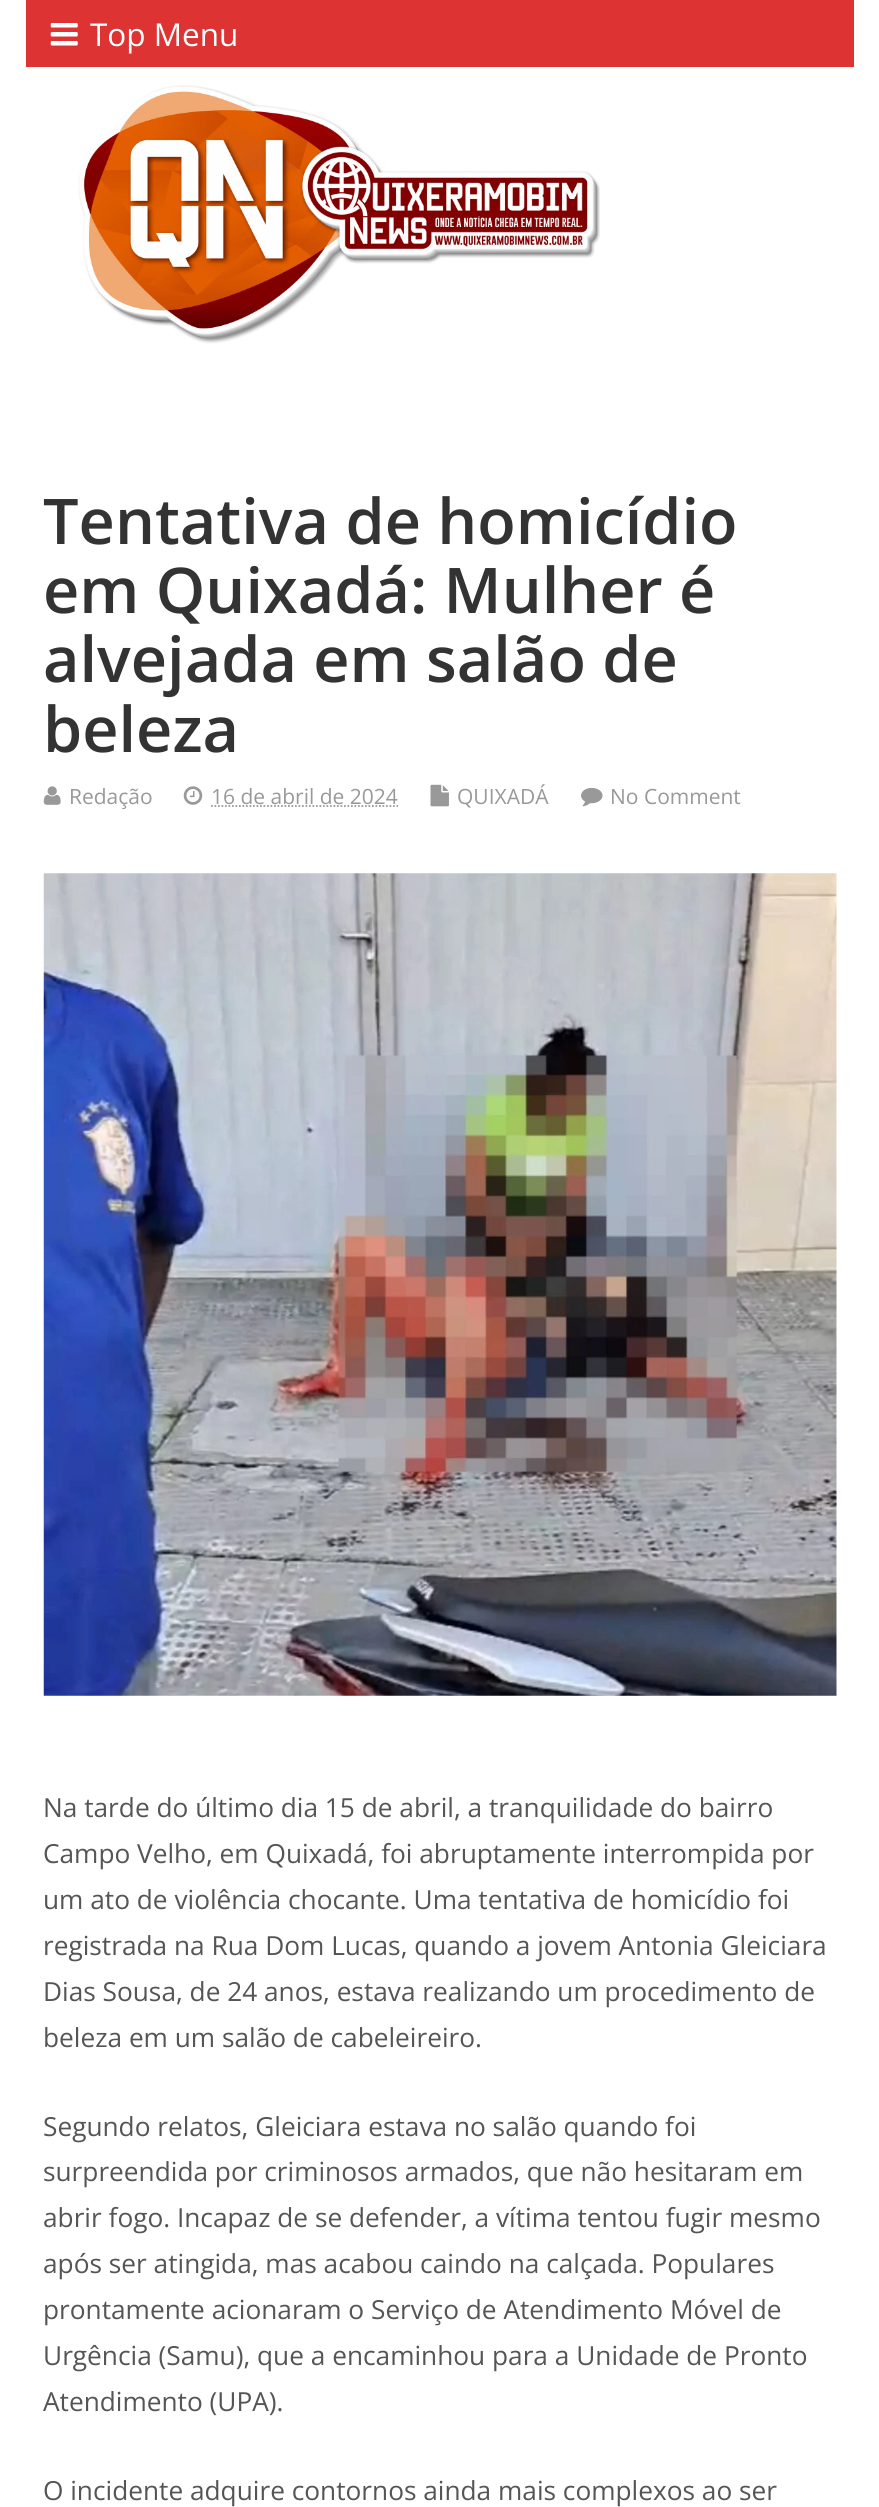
import math
import cairo


def use_color(cr, r, g, b):
  cr.set_source_rgb(r / 255, g / 255, b / 255)

def text(cr, x, y, s, family, size, color, bold=False, italic=False):
  cr.select_font_face(family, cairo.FONT_SLANT_ITALIC if italic else cairo.FONT_SLANT_NORMAL, cairo.FONT_WEIGHT_BOLD if bold else cairo.FONT_WEIGHT_NORMAL)
  cr.set_font_size(size)
  use_color(cr, *color)
  cr.move_to(x, y)
  cr.show_text(s)

def box(cr, x, y, w, h, *color):
  use_color(cr, *color)
  cr.rectangle(x, y, w, h)
  cr.fill()

def picture(cr, path, x, y, w, h):
  cr.save()
  cr.set_source_surface(cairo.ImageSurface.create_from_png(path), x, y)
  cr.rectangle(x, y, w, h)
  cr.fill()
  cr.restore()

def draw(cr):
  use_color(cr, 255, 255, 255)
  cr.paint()
  box(cr, 26, 0, 828, 67, 221, 51, 51)
  picture(cr, "img_01.png", 50, 23, 28, 23)
  picture(cr, "img_02.png", 78, 85, 522, 259)
  picture(cr, "img_03.png", 43, 786, 18, 19)
  picture(cr, "img_04.png", 183, 786, 20, 19)
  cr.new_path()
  cr.move_to(211, 806)
  cr.line_to(398, 806)
  use_color(cr, 153, 153, 153)
  cr.set_line_width(1.8)
  cr.set_dash([1.75, 1.75])
  cr.stroke()
  picture(cr, "img_05.png", 430, 784, 19, 23)
  picture(cr, "img_06.png", 581, 787, 22, 20)
  picture(cr, "img_07.png", 43, 873, 794, 823)
  text(cr, 90, 46, "Top Menu", "Open Sans", 31.5, (255, 255, 255))
  text(cr, 43, 544, "Tentativa de homicídio", "Open Sans SemiBold", 63, (51, 51, 51))
  text(cr, 43, 613, "em Quixadá: Mulher é", "Open Sans SemiBold", 63, (51, 51, 51))
  text(cr, 43, 682, "alvejada em salão de", "Open Sans SemiBold", 63, (51, 51, 51))
  text(cr, 43, 752, "beleza", "Open Sans SemiBold", 63, (51, 51, 51))
  text(cr, 69, 804, "Redação", "Open Sans", 21, (153, 153, 153))
  text(cr, 211, 804, "16 de abril de 2024", "Open Sans", 21, (153, 153, 153))
  text(cr, 457, 804, "QUIXADÁ", "Open Sans", 21, (153, 153, 153))
  text(cr, 610, 804, "No Comment", "Open Sans", 21, (153, 153, 153))
  text(cr, 43, 1817, "Na tarde do último dia 15 de abril, a tranquilidade do bairro", "Open Sans", 26.25, (85, 85, 85))
  text(cr, 43, 1863, "Campo Velho, em Quixadá, foi abruptamente interrompida por", "Open Sans", 26.25, (85, 85, 85))
  text(cr, 43, 1909, "um ato de violência chocante. Uma tentativa de homicídio foi", "Open Sans", 26.25, (85, 85, 85))
  text(cr, 43, 1955, "registrada na Rua Dom Lucas, quando a jovem Antonia Gleiciara", "Open Sans", 26.25, (85, 85, 85))
  text(cr, 43, 2001, "Dias Sousa, de 24 anos, estava realizando um procedimento de", "Open Sans", 26.25, (85, 85, 85))
  text(cr, 43, 2047, "beleza em um salão de cabeleireiro.", "Open Sans", 26.25, (85, 85, 85))
  text(cr, 43, 2136, "Segundo relatos, Gleiciara estava no salão quando foi", "Open Sans", 26.25, (85, 85, 85))
  text(cr, 43, 2181, "surpreendida por criminosos armados, que não hesitaram em", "Open Sans", 26.25, (85, 85, 85))
  text(cr, 43, 2227, "abrir fogo. Incapaz de se defender, a vítima tentou fugir mesmo", "Open Sans", 26.25, (85, 85, 85))
  text(cr, 43, 2273, "após ser atingida, mas acabou caindo na calçada. Populares", "Open Sans", 26.25, (85, 85, 85))
  text(cr, 43, 2319, "prontamente acionaram o Serviço de Atendimento Móvel de", "Open Sans", 26.25, (85, 85, 85))
  text(cr, 43, 2365, "Urgência (Samu), que a encaminhou para a Unidade de Pronto", "Open Sans", 26.25, (85, 85, 85))
  text(cr, 43, 2411, "Atendimento (UPA).", "Open Sans", 26.25, (85, 85, 85))
  text(cr, 43, 2500, "O incidente adquire contornos ainda mais complexos ao ser", "Open Sans", 26.25, (85, 85, 85))


surface = cairo.ImageSurface(cairo.FORMAT_RGB24, 879, 2507)
cr = cairo.Context(surface)
options = cairo.FontOptions()
options.set_hint_metrics(cairo.HINT_METRICS_OFF)
options.set_hint_style(cairo.HINT_STYLE_NONE)
cr.set_font_options(options)
cr.set_miter_limit(4)
draw(cr)
surface.write_to_png("out.png")
